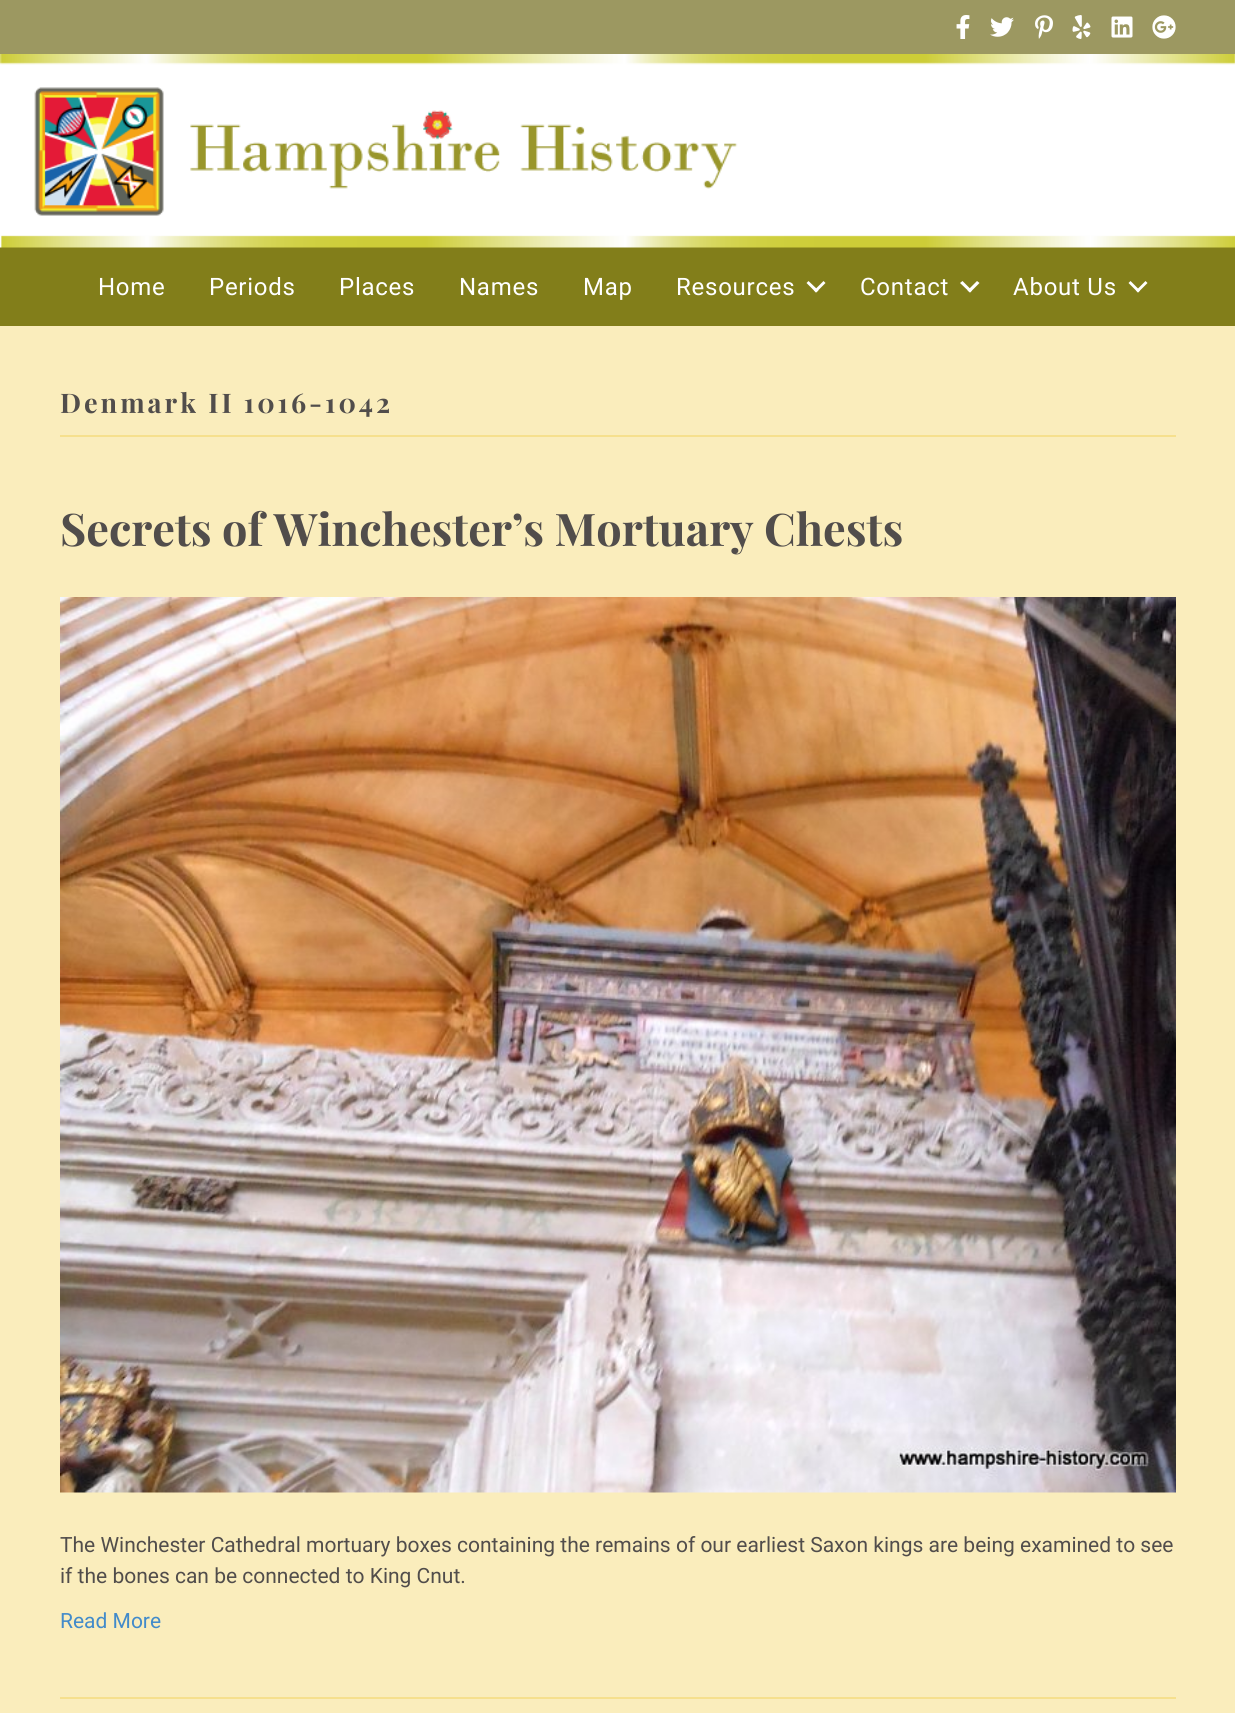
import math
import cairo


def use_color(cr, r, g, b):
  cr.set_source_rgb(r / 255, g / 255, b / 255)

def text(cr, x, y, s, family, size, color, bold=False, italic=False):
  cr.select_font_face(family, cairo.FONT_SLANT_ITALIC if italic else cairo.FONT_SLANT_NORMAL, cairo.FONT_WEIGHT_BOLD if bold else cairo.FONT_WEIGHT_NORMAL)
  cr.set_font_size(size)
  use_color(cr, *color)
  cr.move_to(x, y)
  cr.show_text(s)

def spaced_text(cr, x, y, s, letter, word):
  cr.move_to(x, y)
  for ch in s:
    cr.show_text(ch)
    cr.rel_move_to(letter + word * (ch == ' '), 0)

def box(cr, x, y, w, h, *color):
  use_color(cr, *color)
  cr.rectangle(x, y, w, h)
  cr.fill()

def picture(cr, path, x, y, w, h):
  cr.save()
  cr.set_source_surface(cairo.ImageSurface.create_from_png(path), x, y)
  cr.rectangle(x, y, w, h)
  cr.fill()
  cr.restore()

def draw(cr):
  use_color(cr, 250, 237, 188)
  cr.paint()
  box(cr, 0, 0, 1235, 54, 156, 152, 97)
  picture(cr, "img_01.png", 956, 15, 14, 24)
  picture(cr, "img_02.png", 990, 17, 24, 20)
  picture(cr, "img_03.png", 1035, 15, 18, 24)
  picture(cr, "img_04.png", 1072, 15, 19, 24)
  picture(cr, "img_05.png", 1111, 16, 22, 22)
  picture(cr, "img_06.png", 1152, 15, 24, 24)
  box(cr, 0, 247, 1235, 79, 130, 126, 26)
  picture(cr, "img_07.png", 0, 54, 1235, 194)
  use_color(cr, 255, 255, 255)
  cr.new_path()
  cr.move_to(823.5, 281)
  cr.line_to(825.5, 283)
  cr.line_to(816, 292.5)
  cr.line_to(814, 290.5)
  cr.close_path()
  cr.fill()
  cr.new_path()
  cr.move_to(808.5, 281)
  cr.line_to(818.5, 290.5)
  cr.line_to(816, 292.5)
  cr.line_to(806.5, 283)
  cr.close_path()
  cr.fill()
  cr.new_path()
  cr.move_to(977, 281)
  cr.line_to(979.5, 283)
  cr.line_to(970, 292.5)
  cr.line_to(967.5, 290.5)
  cr.close_path()
  cr.fill()
  cr.new_path()
  cr.move_to(962.5, 281)
  cr.line_to(972, 290.5)
  cr.line_to(970, 292.5)
  cr.line_to(960, 283)
  cr.close_path()
  cr.fill()
  cr.new_path()
  cr.move_to(1145.5, 281)
  cr.line_to(1147.5, 283)
  cr.line_to(1138, 292.5)
  cr.line_to(1136, 290.5)
  cr.close_path()
  cr.fill()
  cr.new_path()
  cr.move_to(1130.5, 281)
  cr.line_to(1140, 290.5)
  cr.line_to(1138, 292.5)
  cr.line_to(1128.5, 283)
  cr.close_path()
  cr.fill()
  box(cr, 60, 435, 1116, 2, 246, 224, 141)
  box(cr, 60, 1697, 1116, 2, 246, 224, 141)
  picture(cr, "img_08.png", 60, 597, 1116, 896)
  cr.select_font_face("Roboto")
  cr.set_font_size(24)
  use_color(cr, 255, 255, 255)
  spaced_text(cr, 98, 295, "Home", 0.75, 0)
  spaced_text(cr, 209, 295, "Periods", 0.75, 0)
  spaced_text(cr, 339, 295, "Places", 0.75, 0)
  spaced_text(cr, 459, 295, "Names", 0.75, 0)
  spaced_text(cr, 583, 295, "Map", 0.75, 0)
  spaced_text(cr, 676, 295, "Resources", 0.75, 0)
  spaced_text(cr, 860, 295, "Contact", 0.75, 0)
  spaced_text(cr, 1013, 295, "About Us", 0.75, 0)
  cr.select_font_face("Playfair Display", cairo.FONT_SLANT_NORMAL, cairo.FONT_WEIGHT_BOLD)
  cr.set_font_size(27)
  use_color(cr, 81, 77, 75)
  spaced_text(cr, 60, 413, "Denmark II 1016-1042", 3, 0)
  text(cr, 60, 546, "Secrets of Winchester’s Mortuary Chests", "Playfair Display", 45, (81, 77, 75), bold=True)
  text(cr, 60, 1552, "The Winchester Cathedral mortuary boxes containing the remains of our earliest Saxon kings are being examined to see", "Roboto", 21, (81, 77, 75))
  text(cr, 60, 1583, "if the bones can be connected to King Cnut.", "Roboto", 21, (81, 77, 75))
  text(cr, 60, 1628, "Read More", "Roboto", 21, (66, 139, 202))


surface = cairo.ImageSurface(cairo.FORMAT_RGB24, 1235, 1713)
cr = cairo.Context(surface)
options = cairo.FontOptions()
options.set_hint_metrics(cairo.HINT_METRICS_OFF)
options.set_hint_style(cairo.HINT_STYLE_NONE)
cr.set_font_options(options)
cr.set_miter_limit(4)
draw(cr)
surface.write_to_png("out.png")
